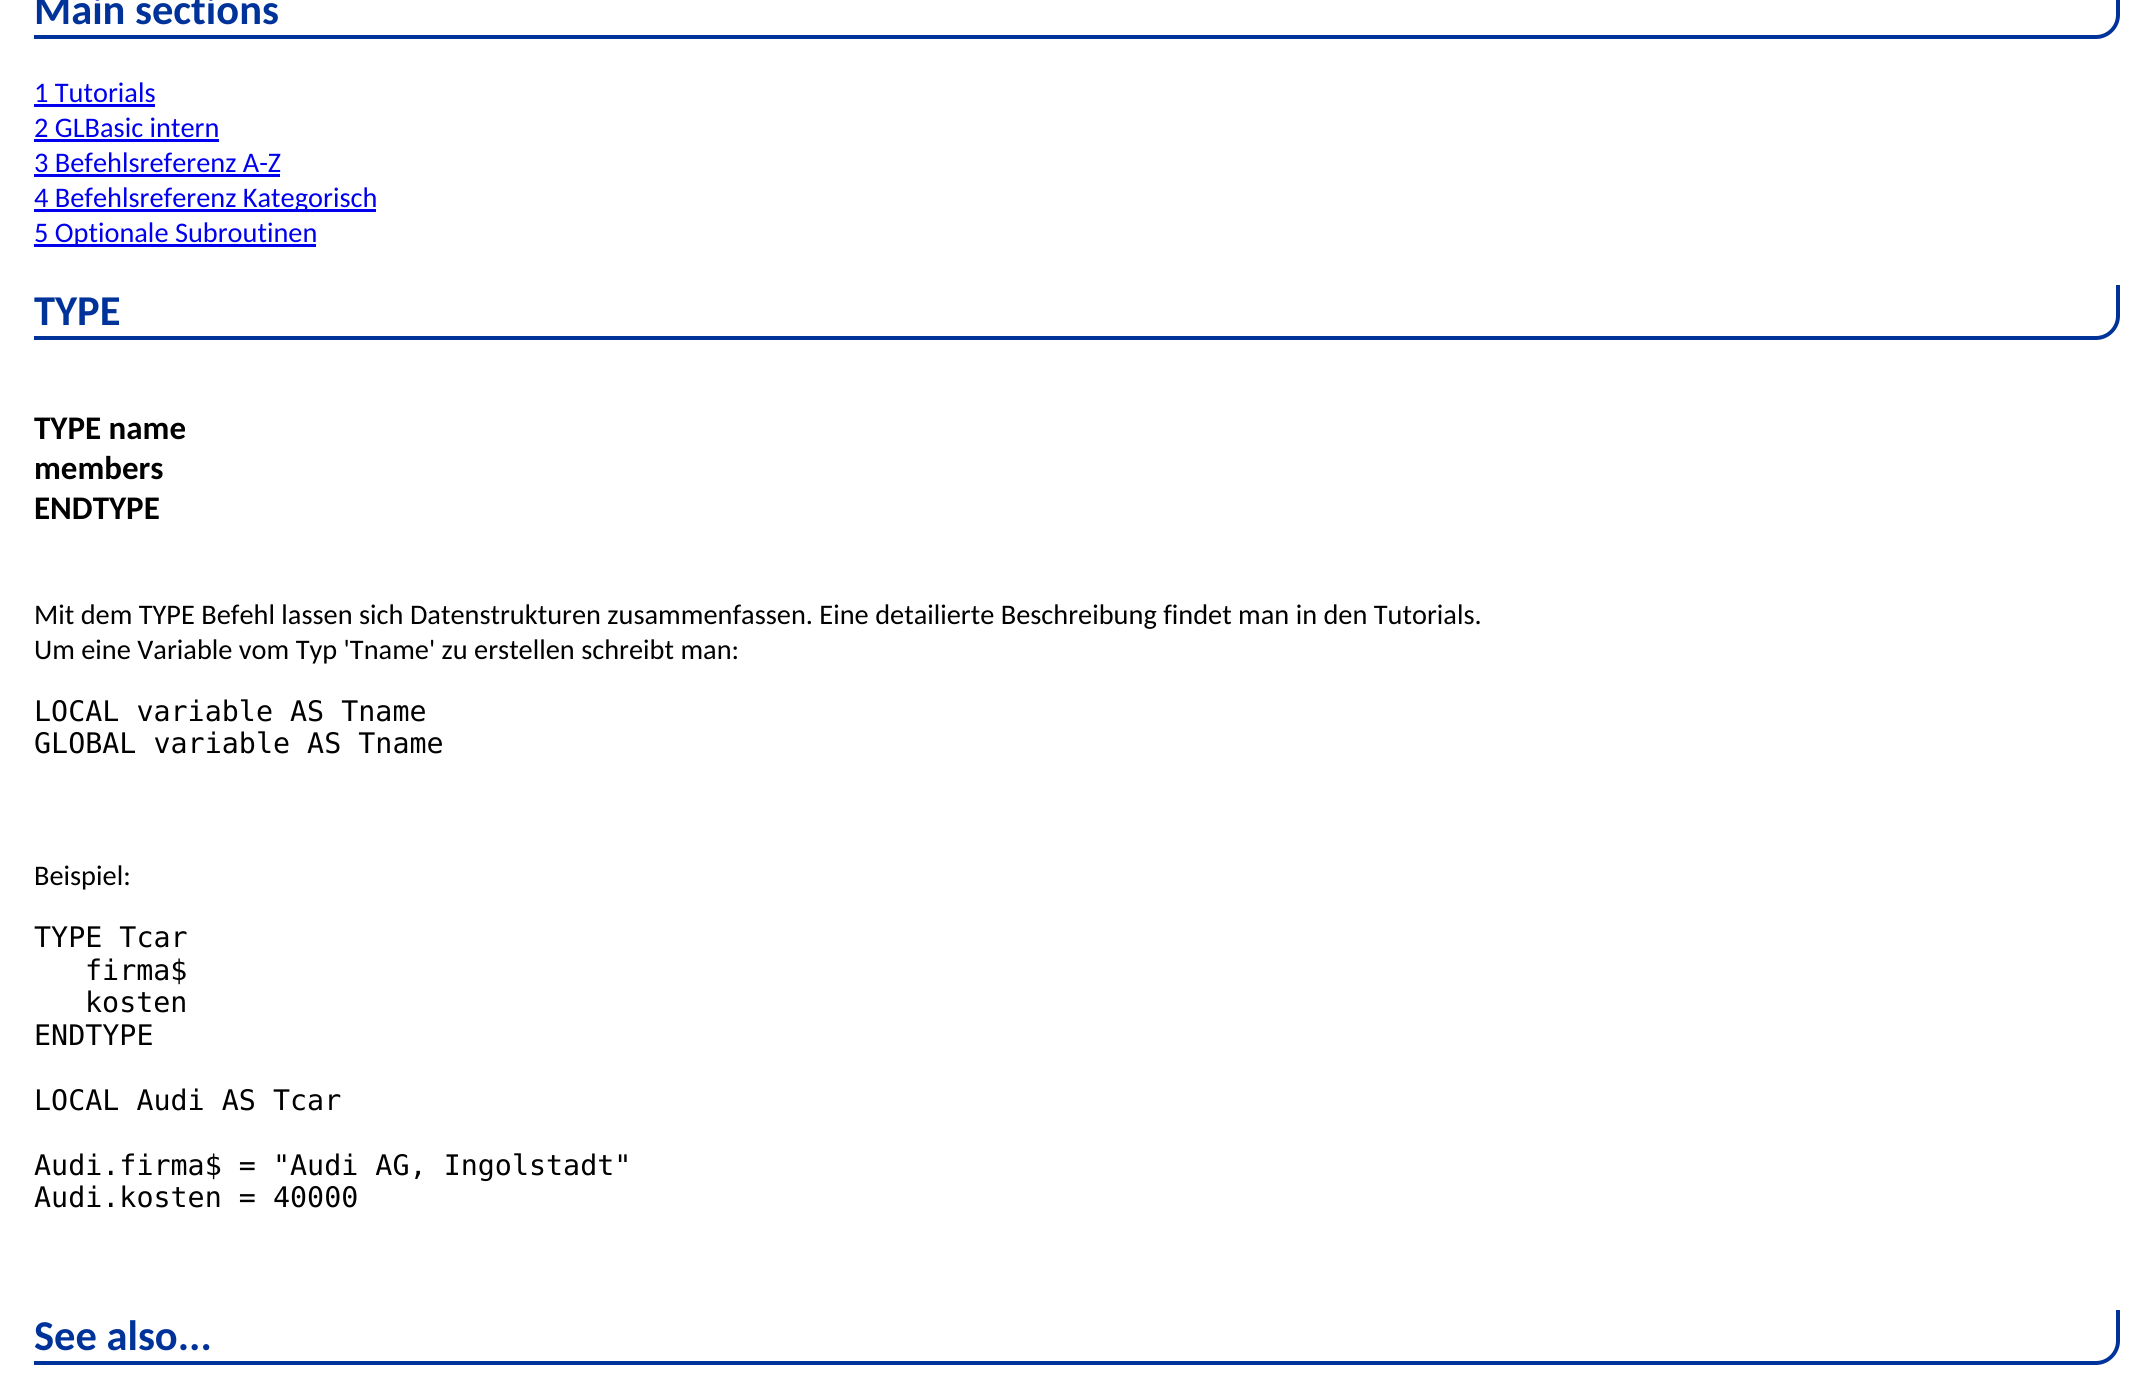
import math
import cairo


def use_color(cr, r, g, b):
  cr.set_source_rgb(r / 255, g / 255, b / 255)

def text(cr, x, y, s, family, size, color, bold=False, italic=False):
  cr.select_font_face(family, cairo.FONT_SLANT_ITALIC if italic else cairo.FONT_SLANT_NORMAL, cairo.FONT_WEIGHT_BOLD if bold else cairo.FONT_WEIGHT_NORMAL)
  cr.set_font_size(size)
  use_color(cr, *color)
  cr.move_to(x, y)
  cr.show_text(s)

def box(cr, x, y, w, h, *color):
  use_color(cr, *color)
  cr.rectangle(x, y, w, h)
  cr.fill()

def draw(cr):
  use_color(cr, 255, 255, 255)
  cr.paint()
  use_color(cr, 0, 51, 153)
  cr.set_fill_rule(cairo.FILL_RULE_EVEN_ODD)
  cr.new_path()
  cr.move_to(34, -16)
  cr.line_to(2120, -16)
  cr.line_to(2120, 15)
  cr.curve_to(2120, 28, 2109, 39, 2096, 39)
  cr.line_to(34, 39)
  cr.close_path()
  cr.move_to(34, -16)
  cr.line_to(2116, -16)
  cr.line_to(2116, 15)
  cr.curve_to(2116, 26, 2107, 35, 2096, 35)
  cr.line_to(34, 35)
  cr.close_path()
  cr.fill()
  box(cr, 34, 104, 121, 3, 0, 0, 238)
  box(cr, 34, 139, 185, 3, 0, 0, 238)
  box(cr, 34, 174, 246, 3, 0, 0, 238)
  box(cr, 34, 209, 342, 3, 0, 0, 238)
  box(cr, 34, 244, 282, 3, 0, 0, 238)
  use_color(cr, 0, 51, 153)
  cr.new_path()
  cr.move_to(34, 285)
  cr.line_to(2120, 285)
  cr.line_to(2120, 316)
  cr.curve_to(2120, 329, 2109, 340, 2096, 340)
  cr.line_to(34, 340)
  cr.close_path()
  cr.move_to(34, 285)
  cr.line_to(2116, 285)
  cr.line_to(2116, 316)
  cr.curve_to(2116, 327, 2107, 336, 2096, 336)
  cr.line_to(34, 336)
  cr.close_path()
  cr.fill()
  cr.new_path()
  cr.move_to(34, 1310)
  cr.line_to(2120, 1310)
  cr.line_to(2120, 1341)
  cr.curve_to(2120, 1354, 2109, 1365, 2096, 1365)
  cr.line_to(34, 1365)
  cr.close_path()
  cr.move_to(34, 1310)
  cr.line_to(2116, 1310)
  cr.line_to(2116, 1341)
  cr.curve_to(2116, 1352, 2107, 1361, 2096, 1361)
  cr.line_to(34, 1361)
  cr.close_path()
  cr.fill()
  text(cr, 34, 24, "Main sections", "Carlito", 42.5, (0, 51, 153), bold=True)
  text(cr, 34, 102, "1 Tutorials", "Carlito", 28.35, (0, 0, 238))
  text(cr, 34, 137, "2 GLBasic intern", "Carlito", 28.35, (0, 0, 238))
  text(cr, 34, 172, "3 Befehlsreferenz A-Z", "Carlito", 28.35, (0, 0, 238))
  text(cr, 34, 207, "4 Befehlsreferenz Kategorisch", "Carlito", 28.35, (0, 0, 238))
  text(cr, 34, 242, "5 Optionale Subroutinen", "Carlito", 28.35, (0, 0, 238))
  text(cr, 34, 325, "TYPE", "Carlito", 42.5, (0, 51, 153), bold=True)
  text(cr, 34, 439, "TYPE name", "Carlito", 33, (0, 0, 0), bold=True)
  text(cr, 34, 479, "members", "Carlito", 33, (0, 0, 0), bold=True)
  text(cr, 34, 519, "ENDTYPE", "Carlito", 33, (0, 0, 0), bold=True)
  text(cr, 34, 624, "Mit dem TYPE Befehl lassen sich Datenstrukturen zusammenfassen. Eine detailierte Beschreibung findet man in den Tutorials.", "Carlito", 28.35, (0, 0, 0))
  text(cr, 34, 659, "Um eine Variable vom Typ 'Tname' zu erstellen schreibt man:", "Carlito", 28.35, (0, 0, 0))
  text(cr, 34, 721, "LOCAL variable AS Tname", "DejaVu Sans Mono", 28.35, (0, 0, 0))
  text(cr, 34, 753, "GLOBAL variable AS Tname", "DejaVu Sans Mono", 28.35, (0, 0, 0))
  text(cr, 34, 885, "Beispiel:", "Carlito", 28.35, (0, 0, 0))
  text(cr, 34, 947, "TYPE Tcar", "DejaVu Sans Mono", 28.35, (0, 0, 0))
  text(cr, 85, 980, "firma$", "DejaVu Sans Mono", 28.35, (0, 0, 0))
  text(cr, 85, 1012, "kosten", "DejaVu Sans Mono", 28.35, (0, 0, 0))
  text(cr, 34, 1045, "ENDTYPE", "DejaVu Sans Mono", 28.35, (0, 0, 0))
  text(cr, 34, 1110, "LOCAL Audi AS Tcar", "DejaVu Sans Mono", 28.35, (0, 0, 0))
  text(cr, 34, 1175, "Audi.firma$ = \"Audi AG, Ingolstadt\"", "DejaVu Sans Mono", 28.35, (0, 0, 0))
  text(cr, 34, 1207, "Audi.kosten = 40000", "DejaVu Sans Mono", 28.35, (0, 0, 0))
  text(cr, 34, 1350, "See also...", "Carlito", 42.5, (0, 51, 153), bold=True)


surface = cairo.ImageSurface(cairo.FORMAT_RGB24, 2149, 1388)
cr = cairo.Context(surface)
options = cairo.FontOptions()
options.set_hint_metrics(cairo.HINT_METRICS_OFF)
options.set_hint_style(cairo.HINT_STYLE_NONE)
cr.set_font_options(options)
cr.set_miter_limit(4)
draw(cr)
surface.write_to_png("out.png")
